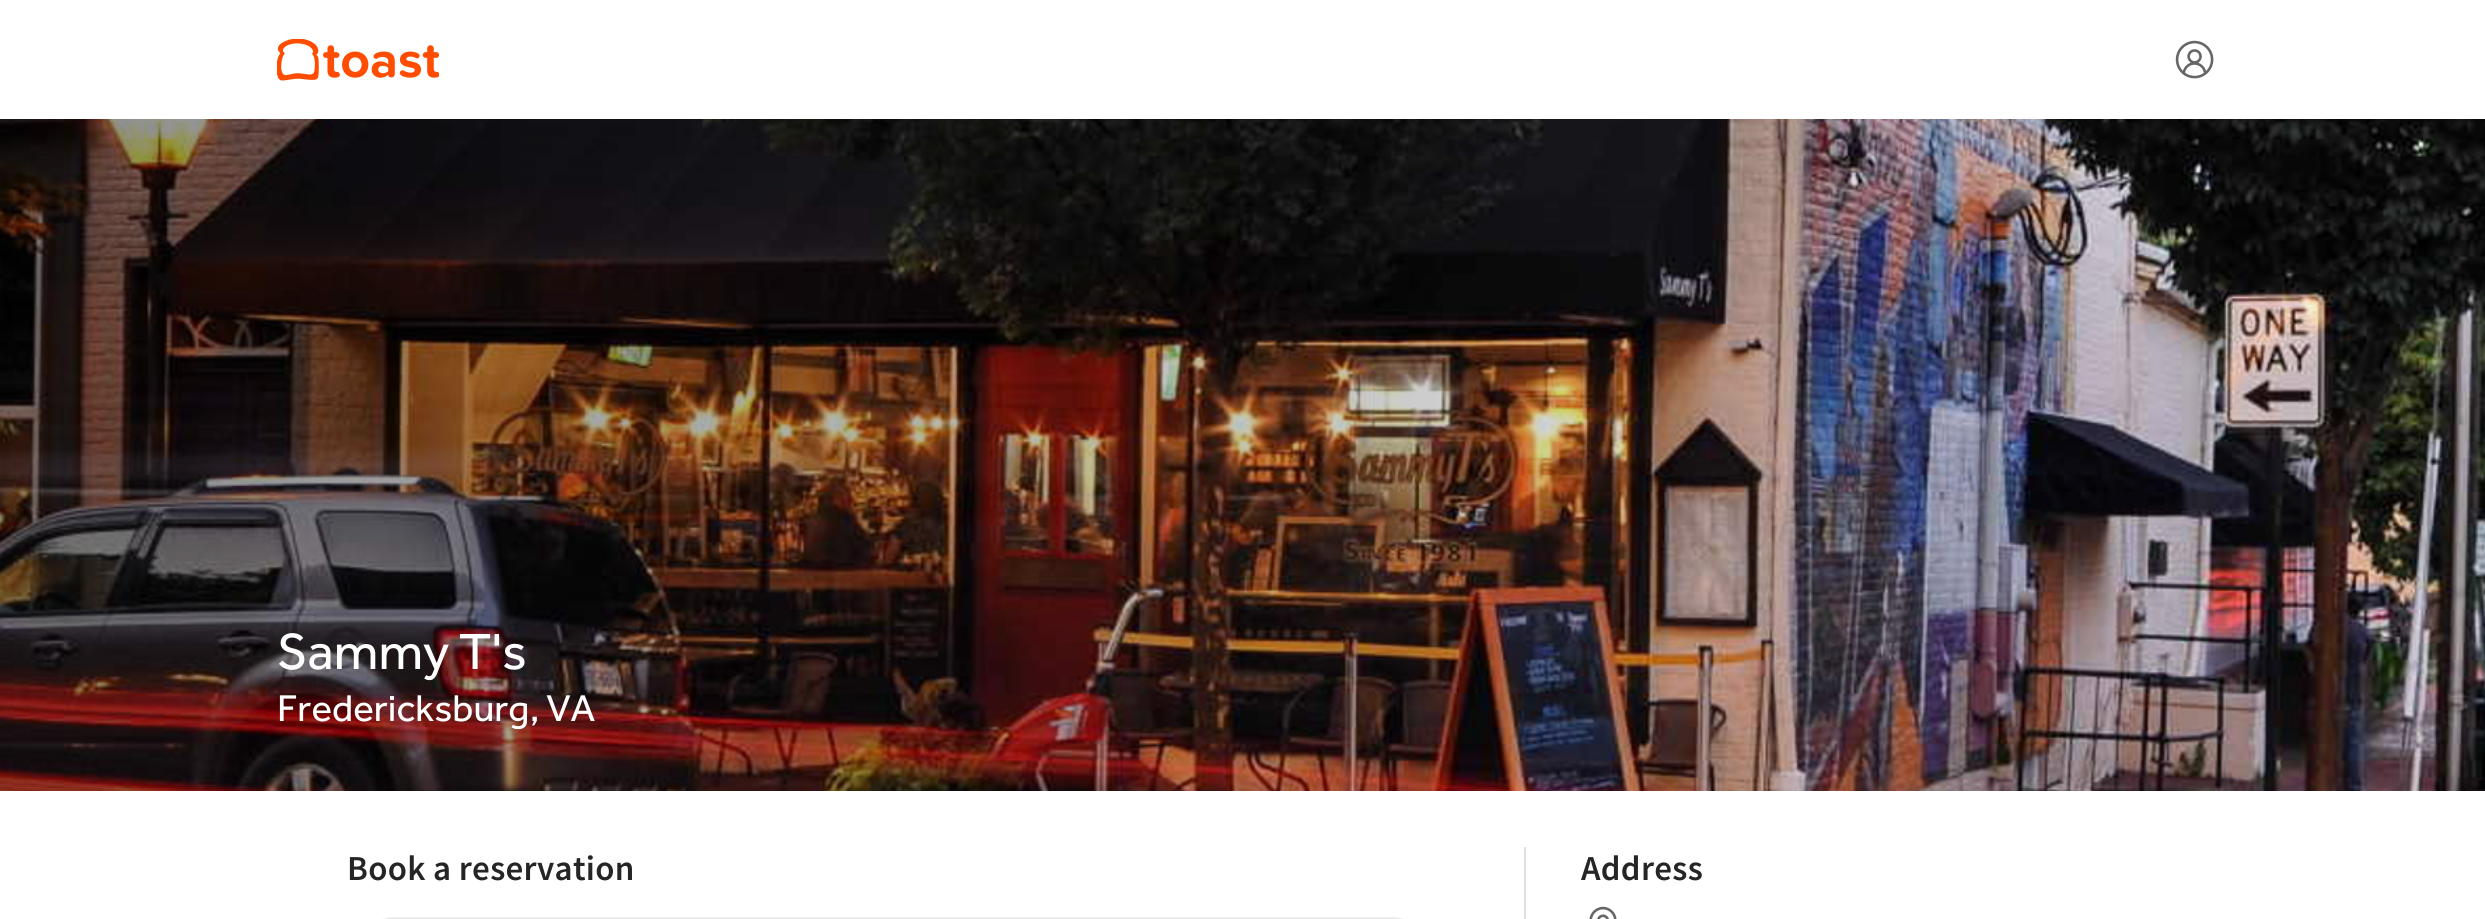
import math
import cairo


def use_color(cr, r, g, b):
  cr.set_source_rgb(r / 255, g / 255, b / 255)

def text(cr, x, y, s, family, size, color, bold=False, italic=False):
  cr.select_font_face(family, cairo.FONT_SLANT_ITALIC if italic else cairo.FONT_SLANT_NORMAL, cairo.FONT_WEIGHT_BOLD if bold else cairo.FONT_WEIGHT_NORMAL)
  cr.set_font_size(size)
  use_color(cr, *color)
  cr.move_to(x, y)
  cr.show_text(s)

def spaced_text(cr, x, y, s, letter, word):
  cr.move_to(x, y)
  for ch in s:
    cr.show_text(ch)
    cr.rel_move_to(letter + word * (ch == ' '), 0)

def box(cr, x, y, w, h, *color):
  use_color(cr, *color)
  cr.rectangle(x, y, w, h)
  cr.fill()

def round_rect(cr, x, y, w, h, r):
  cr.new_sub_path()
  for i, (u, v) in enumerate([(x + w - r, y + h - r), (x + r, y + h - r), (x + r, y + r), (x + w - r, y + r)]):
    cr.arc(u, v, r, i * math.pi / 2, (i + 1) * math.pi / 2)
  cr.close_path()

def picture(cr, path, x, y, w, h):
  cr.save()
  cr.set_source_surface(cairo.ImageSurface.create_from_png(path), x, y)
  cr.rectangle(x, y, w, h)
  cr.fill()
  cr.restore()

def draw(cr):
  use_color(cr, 255, 255, 255)
  cr.paint()
  picture(cr, "img_01.png", 277, 39, 162, 42)
  picture(cr, "img_02.png", 2175, 40, 39, 39)
  picture(cr, "img_03.png", 0, 119, 2485, 672)
  round_rect(cr, 348, 918, 1091, 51, 48)
  use_color(cr, 235, 235, 235)
  cr.stroke()
  box(cr, 1524, 847, 2, 72, 224, 224, 224)
  picture(cr, "img_04.png", 1589, 906, 28, 13)
  text(cr, 277, 669, "Sammy T's", "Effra", 52.5, (255, 255, 255))
  text(cr, 277, 721, "Fredericksburg, VA", "Effra", 38.5, (255, 255, 255))
  cr.select_font_face("Source Sans Pro SemiBold")
  cr.set_font_size(35)
  use_color(cr, 37, 37, 37)
  spaced_text(cr, 347, 880, "Book a reservation", 0.3, 0)
  spaced_text(cr, 1581, 880, "Address", 0.3, 0)


surface = cairo.ImageSurface(cairo.FORMAT_RGB24, 2485, 919)
cr = cairo.Context(surface)
options = cairo.FontOptions()
options.set_hint_metrics(cairo.HINT_METRICS_OFF)
options.set_hint_style(cairo.HINT_STYLE_NONE)
cr.set_font_options(options)
cr.set_miter_limit(4)
draw(cr)
surface.write_to_png("out.png")
